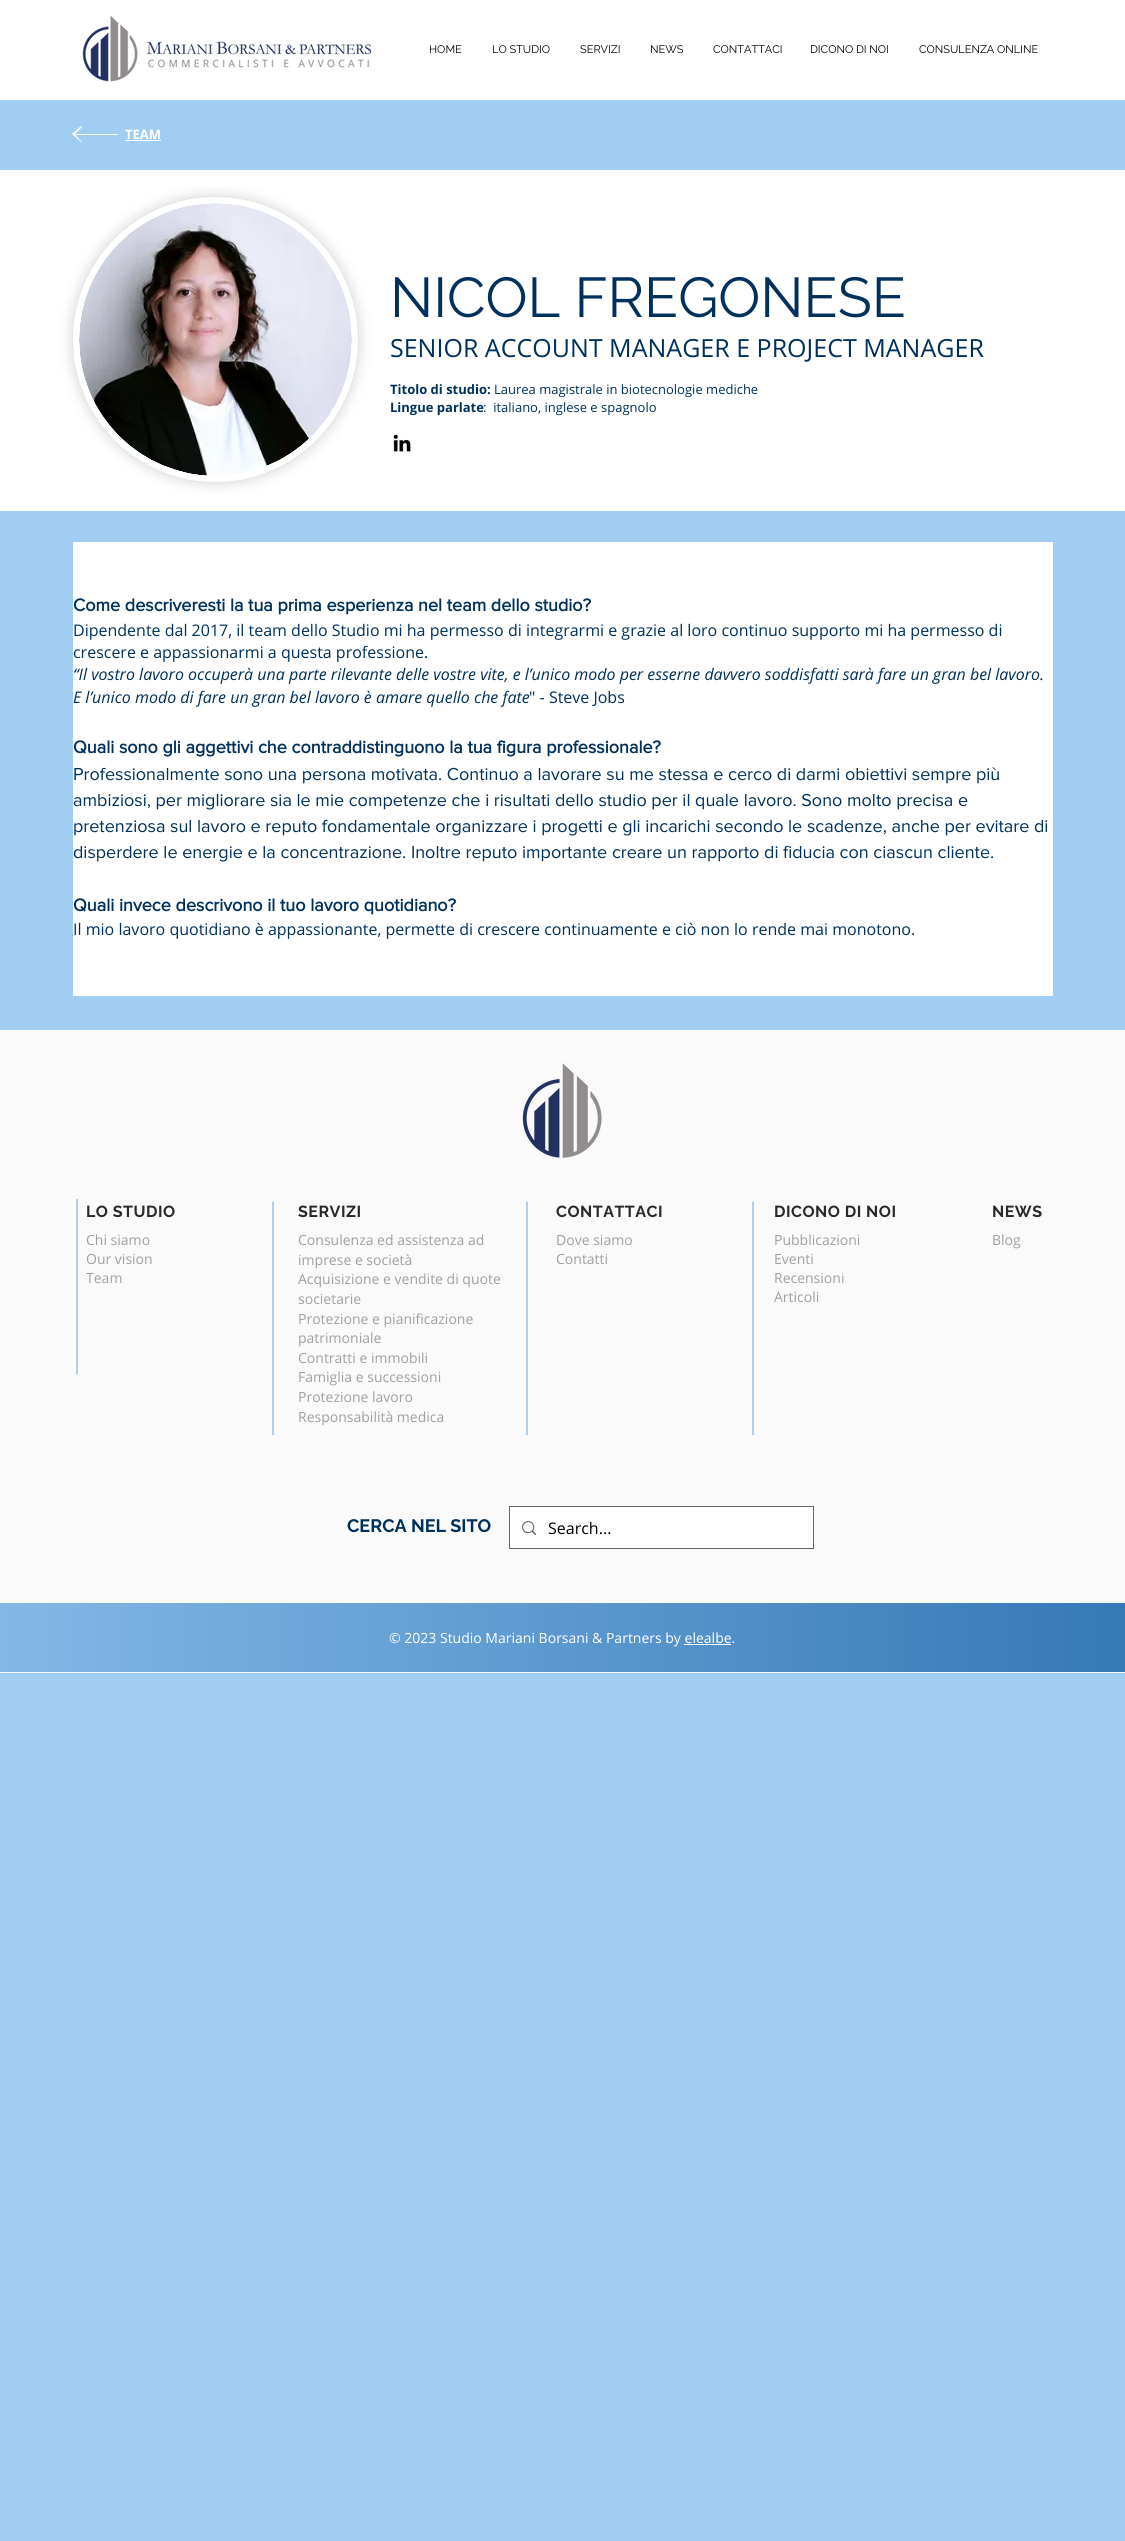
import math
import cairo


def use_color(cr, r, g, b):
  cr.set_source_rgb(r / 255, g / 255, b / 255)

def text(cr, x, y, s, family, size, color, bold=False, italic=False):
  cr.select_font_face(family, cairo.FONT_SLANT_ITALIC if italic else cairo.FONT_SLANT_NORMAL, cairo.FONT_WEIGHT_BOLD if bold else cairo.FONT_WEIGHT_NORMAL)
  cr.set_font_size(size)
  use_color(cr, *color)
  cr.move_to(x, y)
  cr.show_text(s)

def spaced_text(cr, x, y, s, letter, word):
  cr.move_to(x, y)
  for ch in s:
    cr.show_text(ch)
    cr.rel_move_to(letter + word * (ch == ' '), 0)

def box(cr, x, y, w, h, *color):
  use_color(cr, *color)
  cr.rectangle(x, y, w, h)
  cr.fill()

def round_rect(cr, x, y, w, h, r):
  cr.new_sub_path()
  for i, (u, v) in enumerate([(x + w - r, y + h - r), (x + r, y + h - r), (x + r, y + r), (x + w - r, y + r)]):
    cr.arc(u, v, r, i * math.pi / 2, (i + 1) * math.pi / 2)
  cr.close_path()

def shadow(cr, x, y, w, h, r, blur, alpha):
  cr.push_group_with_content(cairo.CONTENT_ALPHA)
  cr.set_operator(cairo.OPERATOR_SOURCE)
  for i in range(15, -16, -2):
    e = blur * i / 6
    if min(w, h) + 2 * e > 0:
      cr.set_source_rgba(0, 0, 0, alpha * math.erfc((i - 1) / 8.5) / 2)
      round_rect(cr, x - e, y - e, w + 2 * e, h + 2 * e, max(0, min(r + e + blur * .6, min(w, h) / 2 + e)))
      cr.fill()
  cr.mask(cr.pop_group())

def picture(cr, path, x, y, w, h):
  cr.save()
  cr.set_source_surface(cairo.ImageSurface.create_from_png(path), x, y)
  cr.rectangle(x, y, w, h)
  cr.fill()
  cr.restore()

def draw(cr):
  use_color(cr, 162, 205, 242)
  cr.paint()
  box(cr, 0, 0, 1125, 100, 255, 255, 255)
  picture(cr, "img_01.png", 82, 16, 290, 66)
  cr.new_path()
  cr.move_to(81, 126)
  cr.line_to(72, 134)
  cr.line_to(81, 142)
  cr.line_to(82, 142)
  cr.line_to(75, 135)
  cr.line_to(118, 135)
  cr.line_to(118, 134)
  cr.line_to(75, 134)
  cr.line_to(82, 127)
  cr.close_path()
  cr.fill()
  box(cr, 125, 140, 36, 1, 255, 255, 255)
  box(cr, 0, 170, 1125, 341, 255, 255, 255)
  use_color(cr, 0, 0, 0)
  shadow(cr, 73, 197, 285, 285, 142.5, 7, 0.2)
  use_color(cr, 255, 255, 255)
  cr.arc(215.5, 339.5, 139.5, 0, 2 * math.pi)
  cr.fill_preserve()
  cr.set_line_width(6)
  cr.stroke()
  picture(cr, "img_02.png", 79, 203, 273, 273)
  picture(cr, "img_03.png", 393, 434, 18, 18)
  box(cr, 73, 542, 980, 454, 255, 255, 255)
  box(cr, 0, 1030, 1125, 643, 250, 250, 250)
  picture(cr, "img_04.png", 522, 1063, 80, 95)
  box(cr, 76, 1199, 2, 175, 173, 206, 237)
  box(cr, 272, 1202, 2, 233, 173, 206, 237)
  box(cr, 526, 1202, 2, 233, 173, 206, 237)
  box(cr, 752, 1202, 2, 233, 173, 206, 237)
  cr.rectangle(509.5, 1506.5, 304, 42)
  use_color(cr, 100, 100, 100)
  cr.set_line_width(1)
  cr.stroke()
  box(cr, 510, 1507, 303, 41, 255, 255, 255)
  picture(cr, "img_05.png", 522, 1521, 14, 14)
  gradient = cairo.LinearGradient(0, 1638, 1125, 1638)
  gradient.add_color_stop_rgba(0, 0.514, 0.718, 0.902, 1)
  gradient.add_color_stop_rgba(1, 0.208, 0.475, 0.718, 1)
  cr.set_source(gradient)
  cr.rectangle(0, 1603, 1125, 69)
  cr.fill()
  box(cr, 684, 1644, 47, 1, 255, 255, 255)
  text(cr, 429, 53, "HOME", "Raleway", 11, (0, 0, 0))
  text(cr, 492, 53, "LO STUDIO", "Raleway", 11, (0, 0, 0))
  text(cr, 580, 53, "SERVIZI", "Raleway", 11, (0, 0, 0))
  text(cr, 650, 53, "NEWS", "Raleway", 11, (0, 0, 0))
  text(cr, 713, 53, "CONTATTACI", "Raleway", 11, (0, 0, 0))
  text(cr, 810, 53, "DICONO DI NOI", "Raleway", 11, (0, 0, 0))
  text(cr, 919, 53, "CONSULENZA ONLINE", "Raleway", 11, (0, 0, 0))
  text(cr, 125, 139, "TEAM", "Open Sans", 13, (255, 255, 255), bold=True)
  text(cr, 390, 317, "NICOL FREGONESE", "Raleway", 56, (0, 48, 91))
  text(cr, 390, 357, "SENIOR ACCOUNT MANAGER E PROJECT MANAGER", "Open Sans", 25, (0, 48, 91))
  text(cr, 390, 394, "Titolo di studio:", "Open Sans", 13, (0, 48, 91), bold=True)
  text(cr, 494, 394, "Laurea magistrale in biotecnologie mediche", "Open Sans", 13, (0, 48, 91))
  text(cr, 390, 412, "Lingue parlate", "Open Sans", 13, (0, 48, 91), bold=True)
  text(cr, 483, 412, ":  italiano, inglese e spagnolo", "Open Sans", 13, (0, 48, 91))
  text(cr, 73, 611, "Come descriveresti la tua prima esperienza nel team dello studio?", "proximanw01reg", 18, (0, 48, 91), bold=True)
  text(cr, 73, 636, "Dipendente dal 2017, il team dello Studio mi ha permesso di integrarmi e grazie al loro continuo supporto mi ha permesso di", "Open Sans", 16, (0, 48, 91))
  text(cr, 73, 658, "crescere e appassionarmi a questa professione.", "Open Sans", 16, (0, 48, 91))
  text(cr, 73, 680, "“Il vostro lavoro occuperà una parte rilevante delle vostre vite, e l’unico modo per esserne davvero soddisfatti sarà fare un gran bel lavoro.", "Open Sans", 16, (0, 48, 91), italic=True)
  text(cr, 73, 703, "E l’unico modo di fare un gran bel lavoro è amare quello che fate", "Open Sans", 16, (0, 48, 91), italic=True)
  text(cr, 529, 703, "\" - Steve Jobs", "Open Sans", 16, (0, 48, 91))
  text(cr, 73, 753, "Quali sono gli aggettivi che contraddistinguono la tua figura professionale?", "proximanw01reg", 18, (0, 48, 91), bold=True)
  text(cr, 73, 780, "Professionalmente sono una persona motivata. Continuo a lavorare su me stessa e cerco di darmi obiettivi sempre più", "proximanw01reg", 18, (0, 48, 91))
  text(cr, 73, 806, "ambiziosi, per migliorare sia le mie competenze che i risultati dello studio per il quale lavoro. Sono molto precisa e", "proximanw01reg", 18, (0, 48, 91))
  text(cr, 73, 832, "pretenziosa sul lavoro e reputo fondamentale organizzare i progetti e gli incarichi secondo le scadenze, anche per evitare di", "proximanw01reg", 18, (0, 48, 91))
  text(cr, 73, 858, "disperdere le energie e la concentrazione. Inoltre reputo importante creare un rapporto di fiducia con ciascun cliente.", "proximanw01reg", 18, (0, 48, 91))
  text(cr, 73, 911, "Quali invece descrivono il tuo lavoro quotidiano?", "proximanw01reg", 18, (0, 48, 91), bold=True)
  text(cr, 73, 935, "Il mio lavoro quotidiano è appassionante, permette di crescere continuamente e ciò non lo rende mai monotono.", "Open Sans", 16, (0, 48, 91))
  cr.select_font_face("Raleway", cairo.FONT_SLANT_NORMAL, cairo.FONT_WEIGHT_BOLD)
  use_color(cr, 41, 41, 41)
  spaced_text(cr, 86, 1217, "LO STUDIO", 0.5, 0)
  spaced_text(cr, 298, 1217, "SERVIZI", 0.5, 0)
  spaced_text(cr, 556, 1217, "CONTATTACI", 0.5, 0)
  spaced_text(cr, 774, 1217, "DICONO DI NOI", 0.5, 0)
  spaced_text(cr, 992, 1217, "NEWS", 0.5, 0)
  text(cr, 86, 1245, "Chi siamo", "Open Sans", 14, (160, 160, 160))
  text(cr, 86, 1264, "Our vision", "Open Sans", 14, (160, 160, 160))
  text(cr, 86, 1283, "Team", "Open Sans", 14, (160, 160, 160))
  text(cr, 298, 1245, "Consulenza ed assistenza ad", "Open Sans", 14, (160, 160, 160))
  text(cr, 298, 1265, "imprese e società", "Open Sans", 14, (160, 160, 160))
  text(cr, 298, 1284, "Acquisizione e vendite di quote", "Open Sans", 14, (160, 160, 160))
  text(cr, 298, 1304, "societarie", "Open Sans", 14, (160, 160, 160))
  text(cr, 298, 1324, "Protezione e pianificazione", "Open Sans", 14, (160, 160, 160))
  text(cr, 298, 1343, "patrimoniale", "Open Sans", 14, (160, 160, 160))
  text(cr, 298, 1363, "Contratti e immobili", "Open Sans", 14, (160, 160, 160))
  text(cr, 298, 1382, "Famiglia e successioni", "Open Sans", 14, (160, 160, 160))
  text(cr, 298, 1402, "Protezione lavoro", "Open Sans", 14, (160, 160, 160))
  text(cr, 298, 1422, "Responsabilità medica", "Open Sans", 14, (160, 160, 160))
  text(cr, 556, 1245, "Dove siamo", "Open Sans", 14, (160, 160, 160))
  text(cr, 556, 1264, "Contatti", "Open Sans", 14, (160, 160, 160))
  text(cr, 774, 1245, "Pubblicazioni", "Open Sans", 14, (160, 160, 160))
  text(cr, 774, 1264, "Eventi", "Open Sans", 14, (160, 160, 160))
  text(cr, 774, 1283, "Recensioni", "Open Sans", 14, (160, 160, 160))
  text(cr, 774, 1302, "Articoli", "Open Sans", 14, (160, 160, 160))
  text(cr, 992, 1245, "Blog", "Open Sans", 14, (160, 160, 160))
  text(cr, 347, 1532, "CERCA NEL SITO", "Raleway", 18, (0, 48, 91), bold=True)
  text(cr, 548, 1534, "Search...", "Open Sans", 16, (0, 0, 0))
  text(cr, 389, 1643, "© 2023 Studio Mariani Borsani & Partners by elealbe.", "Open Sans", 14, (255, 255, 255))


surface = cairo.ImageSurface(cairo.FORMAT_RGB24, 1125, 2541)
cr = cairo.Context(surface)
options = cairo.FontOptions()
options.set_hint_metrics(cairo.HINT_METRICS_OFF)
options.set_hint_style(cairo.HINT_STYLE_NONE)
cr.set_font_options(options)
cr.set_miter_limit(4)
draw(cr)
surface.write_to_png("out.png")
